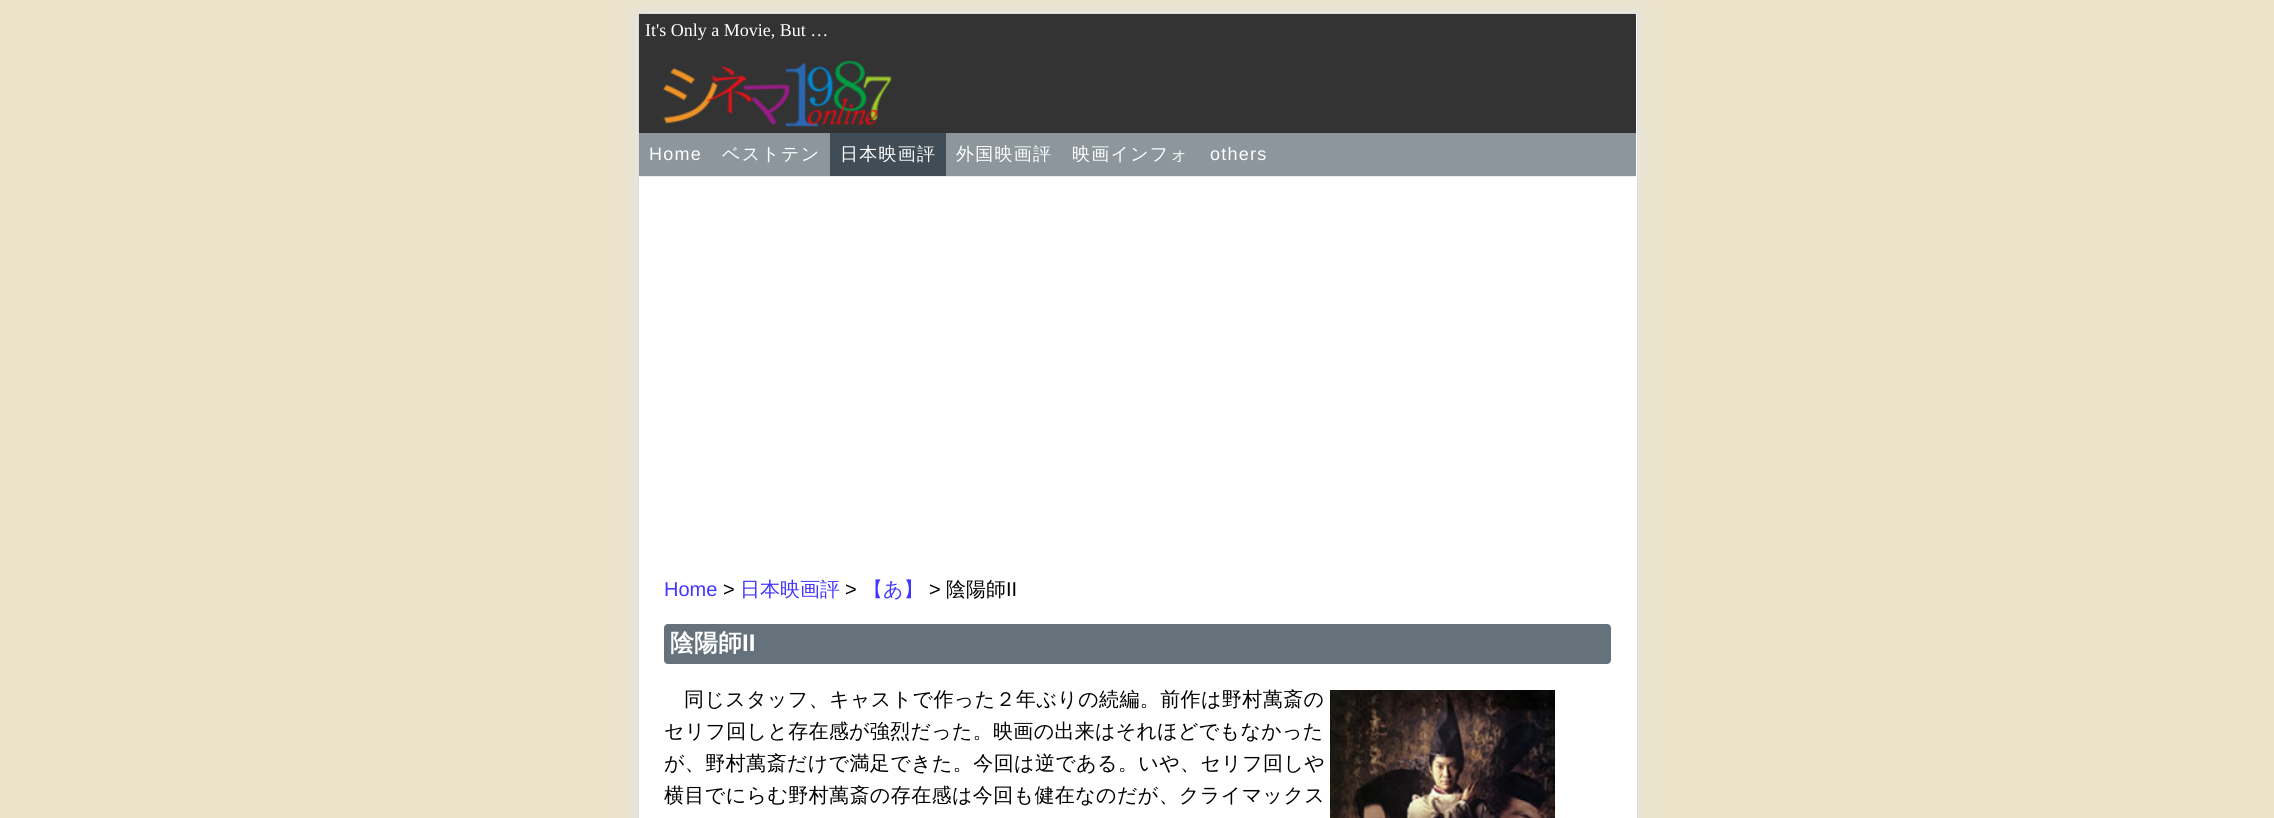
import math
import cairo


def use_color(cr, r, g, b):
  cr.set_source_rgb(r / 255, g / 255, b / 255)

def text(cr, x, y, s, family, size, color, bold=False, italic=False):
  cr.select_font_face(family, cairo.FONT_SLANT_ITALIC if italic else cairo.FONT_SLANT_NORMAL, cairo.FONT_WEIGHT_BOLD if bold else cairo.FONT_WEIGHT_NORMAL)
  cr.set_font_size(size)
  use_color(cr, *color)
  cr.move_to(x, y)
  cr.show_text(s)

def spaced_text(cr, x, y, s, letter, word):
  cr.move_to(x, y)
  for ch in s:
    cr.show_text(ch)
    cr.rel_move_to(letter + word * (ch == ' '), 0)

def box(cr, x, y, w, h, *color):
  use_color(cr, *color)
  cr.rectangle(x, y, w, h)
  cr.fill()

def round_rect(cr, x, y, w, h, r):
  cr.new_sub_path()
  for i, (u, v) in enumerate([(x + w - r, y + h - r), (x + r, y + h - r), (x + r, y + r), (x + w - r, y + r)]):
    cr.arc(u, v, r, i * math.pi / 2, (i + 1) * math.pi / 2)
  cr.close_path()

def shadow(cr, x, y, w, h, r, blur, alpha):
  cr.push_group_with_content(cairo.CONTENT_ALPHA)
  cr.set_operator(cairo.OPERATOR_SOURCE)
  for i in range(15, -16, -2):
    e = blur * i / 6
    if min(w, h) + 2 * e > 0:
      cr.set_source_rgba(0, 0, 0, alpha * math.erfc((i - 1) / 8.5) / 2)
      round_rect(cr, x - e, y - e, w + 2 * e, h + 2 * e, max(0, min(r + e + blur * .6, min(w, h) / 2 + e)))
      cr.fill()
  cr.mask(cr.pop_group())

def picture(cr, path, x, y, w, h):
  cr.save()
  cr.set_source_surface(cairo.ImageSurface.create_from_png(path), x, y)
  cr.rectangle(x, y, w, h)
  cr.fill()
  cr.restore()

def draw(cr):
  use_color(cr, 235, 227, 202)
  cr.paint()
  use_color(cr, 229, 229, 229)
  shadow(cr, 638, 13, 1000, 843, 0, 12.5, 1)
  use_color(cr, 255, 255, 255)
  cr.rectangle(638.5, 13.5, 999, 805)
  cr.fill_preserve()
  use_color(cr, 221, 221, 221)
  cr.set_line_width(1)
  cr.stroke()
  box(cr, 639, 14, 997, 119, 51, 51, 51)
  picture(cr, "img_01.png", 662, 53, 230, 74)
  box(cr, 639, 133, 997, 43, 140, 150, 156)
  box(cr, 830, 133, 116, 43, 64, 77, 86)
  box(cr, 639, 176, 997, 1, 238, 238, 238)
  use_color(cr, 101, 114, 123)
  round_rect(cr, 664, 624, 947, 40, 4)
  cr.fill()
  picture(cr, "img_02.png", 1330, 690, 225, 128)
  text(cr, 645, 36, "It's Only a Movie, But …", "Liberation Serif", 18, (255, 255, 255))
  cr.select_font_face("Liberation Sans")
  spaced_text(cr, 649, 160, "Home", 1.25, 0)
  cr.select_font_face("WenQuanYi Zen Hei Medium")
  spaced_text(cr, 722, 160, "ベストテン", 1.25, 0)
  spaced_text(cr, 840, 160, "日本映画評", 1.25, 0)
  spaced_text(cr, 956, 160, "外国映画評", 1.25, 0)
  spaced_text(cr, 1072, 160, "映画インフォ", 1.25, 0)
  cr.select_font_face("Liberation Sans")
  spaced_text(cr, 1210, 160, "others", 1.25, 0)
  text(cr, 664, 596, "Home", "Liberation Sans", 20, (65, 53, 255))
  text(cr, 723, 596, ">", "Liberation Sans", 20, (0, 0, 0))
  text(cr, 740, 596, "日本映画評", "WenQuanYi Zen Hei Medium", 20, (65, 53, 255))
  text(cr, 845, 596, ">", "Liberation Sans", 20, (0, 0, 0))
  text(cr, 863, 596, "【あ】", "WenQuanYi Zen Hei Medium", 20, (65, 53, 255))
  text(cr, 929, 596, ">", "Liberation Sans", 20, (0, 0, 0))
  text(cr, 946, 596, "陰陽師", "WenQuanYi Zen Hei Medium", 20, (0, 0, 0))
  text(cr, 1006, 596, "II", "Liberation Sans", 20, (0, 0, 0))
  text(cr, 670, 651, "陰陽師", "WenQuanYi Zen Hei", 24, (255, 255, 255), bold=True)
  text(cr, 742, 651, "II", "Liberation Sans", 24, (255, 255, 255), bold=True)
  cr.select_font_face("WenQuanYi Zen Hei Medium")
  cr.set_font_size(20)
  use_color(cr, 0, 0, 0)
  spaced_text(cr, 684, 706, "同じスタッフ、キャストで作った２年ぶりの続編。前作は野村萬斎の", 0.4, 0)
  spaced_text(cr, 664, 738, "セリフ回しと存在感が強烈だった。映画の出来はそれほどでもなかった", 0.3, 0)
  spaced_text(cr, 664, 770, "が、野村萬斎だけで満足できた。今回は逆である。いや、セリフ回しや", 0.4, 0)
  spaced_text(cr, 664, 802, "横目でにらむ野村萬斎の存在感は今回も健在なのだが、クライマックス", 0.4, 0)


surface = cairo.ImageSurface(cairo.FORMAT_RGB24, 2274, 818)
cr = cairo.Context(surface)
options = cairo.FontOptions()
options.set_hint_metrics(cairo.HINT_METRICS_OFF)
options.set_hint_style(cairo.HINT_STYLE_NONE)
cr.set_font_options(options)
cr.set_miter_limit(4)
draw(cr)
surface.write_to_png("out.png")
